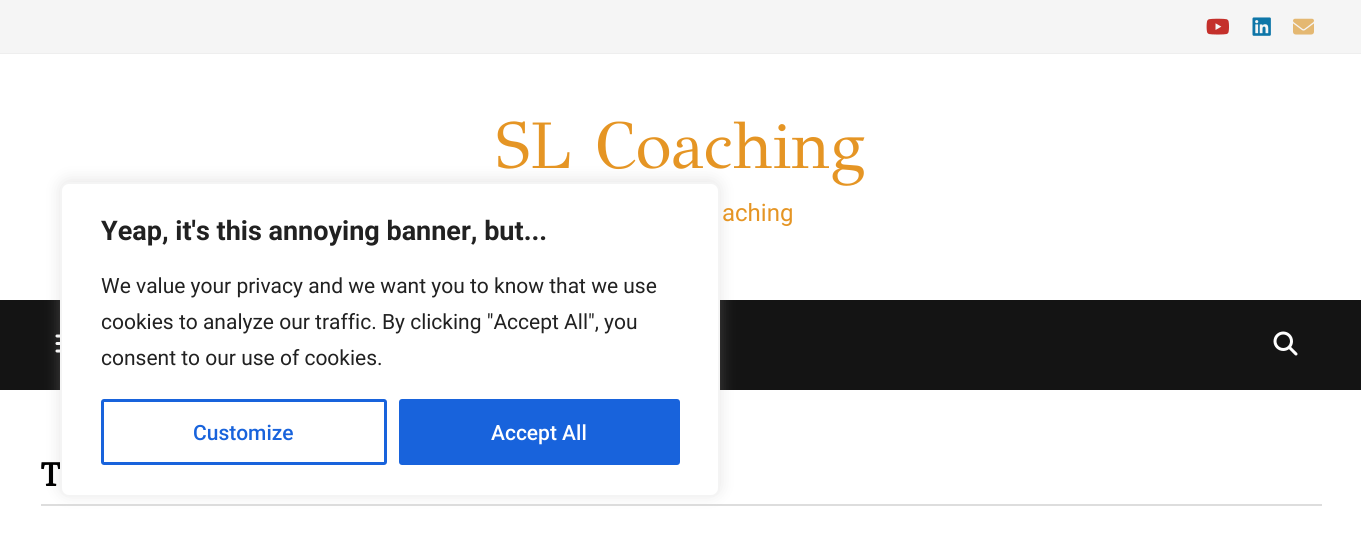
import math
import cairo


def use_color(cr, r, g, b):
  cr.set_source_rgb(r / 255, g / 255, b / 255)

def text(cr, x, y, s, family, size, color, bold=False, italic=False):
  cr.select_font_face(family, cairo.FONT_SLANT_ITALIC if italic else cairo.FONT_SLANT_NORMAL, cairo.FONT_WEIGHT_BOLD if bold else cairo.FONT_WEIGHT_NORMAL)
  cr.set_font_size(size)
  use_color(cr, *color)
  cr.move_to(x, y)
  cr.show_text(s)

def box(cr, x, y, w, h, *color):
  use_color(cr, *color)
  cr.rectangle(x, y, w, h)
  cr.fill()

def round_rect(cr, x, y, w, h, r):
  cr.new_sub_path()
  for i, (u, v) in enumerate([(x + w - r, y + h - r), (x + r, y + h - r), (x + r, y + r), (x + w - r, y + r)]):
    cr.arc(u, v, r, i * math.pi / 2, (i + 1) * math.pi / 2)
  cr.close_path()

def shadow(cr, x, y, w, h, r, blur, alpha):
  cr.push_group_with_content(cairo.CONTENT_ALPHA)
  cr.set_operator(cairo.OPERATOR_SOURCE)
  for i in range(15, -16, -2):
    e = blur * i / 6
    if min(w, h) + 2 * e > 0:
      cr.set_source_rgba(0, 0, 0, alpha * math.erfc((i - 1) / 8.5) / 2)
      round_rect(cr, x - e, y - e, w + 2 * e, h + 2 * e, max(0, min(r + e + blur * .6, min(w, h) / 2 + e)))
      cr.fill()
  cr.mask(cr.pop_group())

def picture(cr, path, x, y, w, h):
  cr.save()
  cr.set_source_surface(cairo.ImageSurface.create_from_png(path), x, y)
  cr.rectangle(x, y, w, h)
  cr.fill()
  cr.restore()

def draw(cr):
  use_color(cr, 255, 255, 255)
  cr.paint()
  box(cr, 0, 0, 1361, 53, 245, 245, 245)
  box(cr, 0, 53, 1361, 1, 238, 238, 238)
  picture(cr, "img_01.png", 1206, 18, 23, 17)
  picture(cr, "img_02.png", 1252, 17, 19, 19)
  picture(cr, "img_03.png", 1293, 18, 21, 17)
  box(cr, 0, 300, 1361, 90, 20, 20, 20)
  picture(cr, "img_04.png", 55, 334, 5, 19)
  picture(cr, "img_05.png", 1273, 331, 25, 25)
  box(cr, 41, 504, 1281, 2, 221, 221, 221)
  use_color(cr, 172, 171, 171)
  shadow(cr, 60, 180, 660, 315, 9, 7.5, 0.3)
  text(cr, 496, 168, "SL Coaching", "GFS Didot", 66, (229, 149, 36))
  text(cr, 722, 221, "aching", "Roboto", 24, (229, 149, 36))
  text(cr, 41, 486, "T", "Poly", 33, (0, 0, 0), bold=True)
  use_color(cr, 255, 255, 255)
  round_rect(cr, 61, 183, 658, 313, 8)
  cr.fill_preserve()
  use_color(cr, 244, 244, 244)
  cr.stroke()
  text(cr, 101, 240, "Yeap, it's this annoying banner, but...", "Roboto", 27, (33, 33, 33), bold=True)
  text(cr, 101, 293, "We value your privacy and we want you to know that we use", "Roboto", 21, (33, 33, 33))
  text(cr, 101, 329, "cookies to analyze our traffic. By clicking \"Accept All\", you", "Roboto", 21, (33, 33, 33))
  text(cr, 101, 365, "consent to our use of cookies.", "Roboto", 21, (33, 33, 33))
  round_rect(cr, 102.5, 400.5, 283, 63, 1.5)
  use_color(cr, 24, 99, 220)
  cr.set_line_width(3)
  cr.stroke()
  text(cr, 193, 440, "Customize", "Roboto Medium", 21, (24, 99, 220))
  round_rect(cr, 400.5, 400.5, 278, 63, 1.5)
  cr.fill_preserve()
  cr.stroke()
  text(cr, 491, 440, "Accept All", "Roboto Medium", 21, (255, 255, 255))


surface = cairo.ImageSurface(cairo.FORMAT_RGB24, 1361, 556)
cr = cairo.Context(surface)
options = cairo.FontOptions()
options.set_hint_metrics(cairo.HINT_METRICS_OFF)
options.set_hint_style(cairo.HINT_STYLE_NONE)
cr.set_font_options(options)
cr.set_miter_limit(4)
draw(cr)
surface.write_to_png("out.png")
